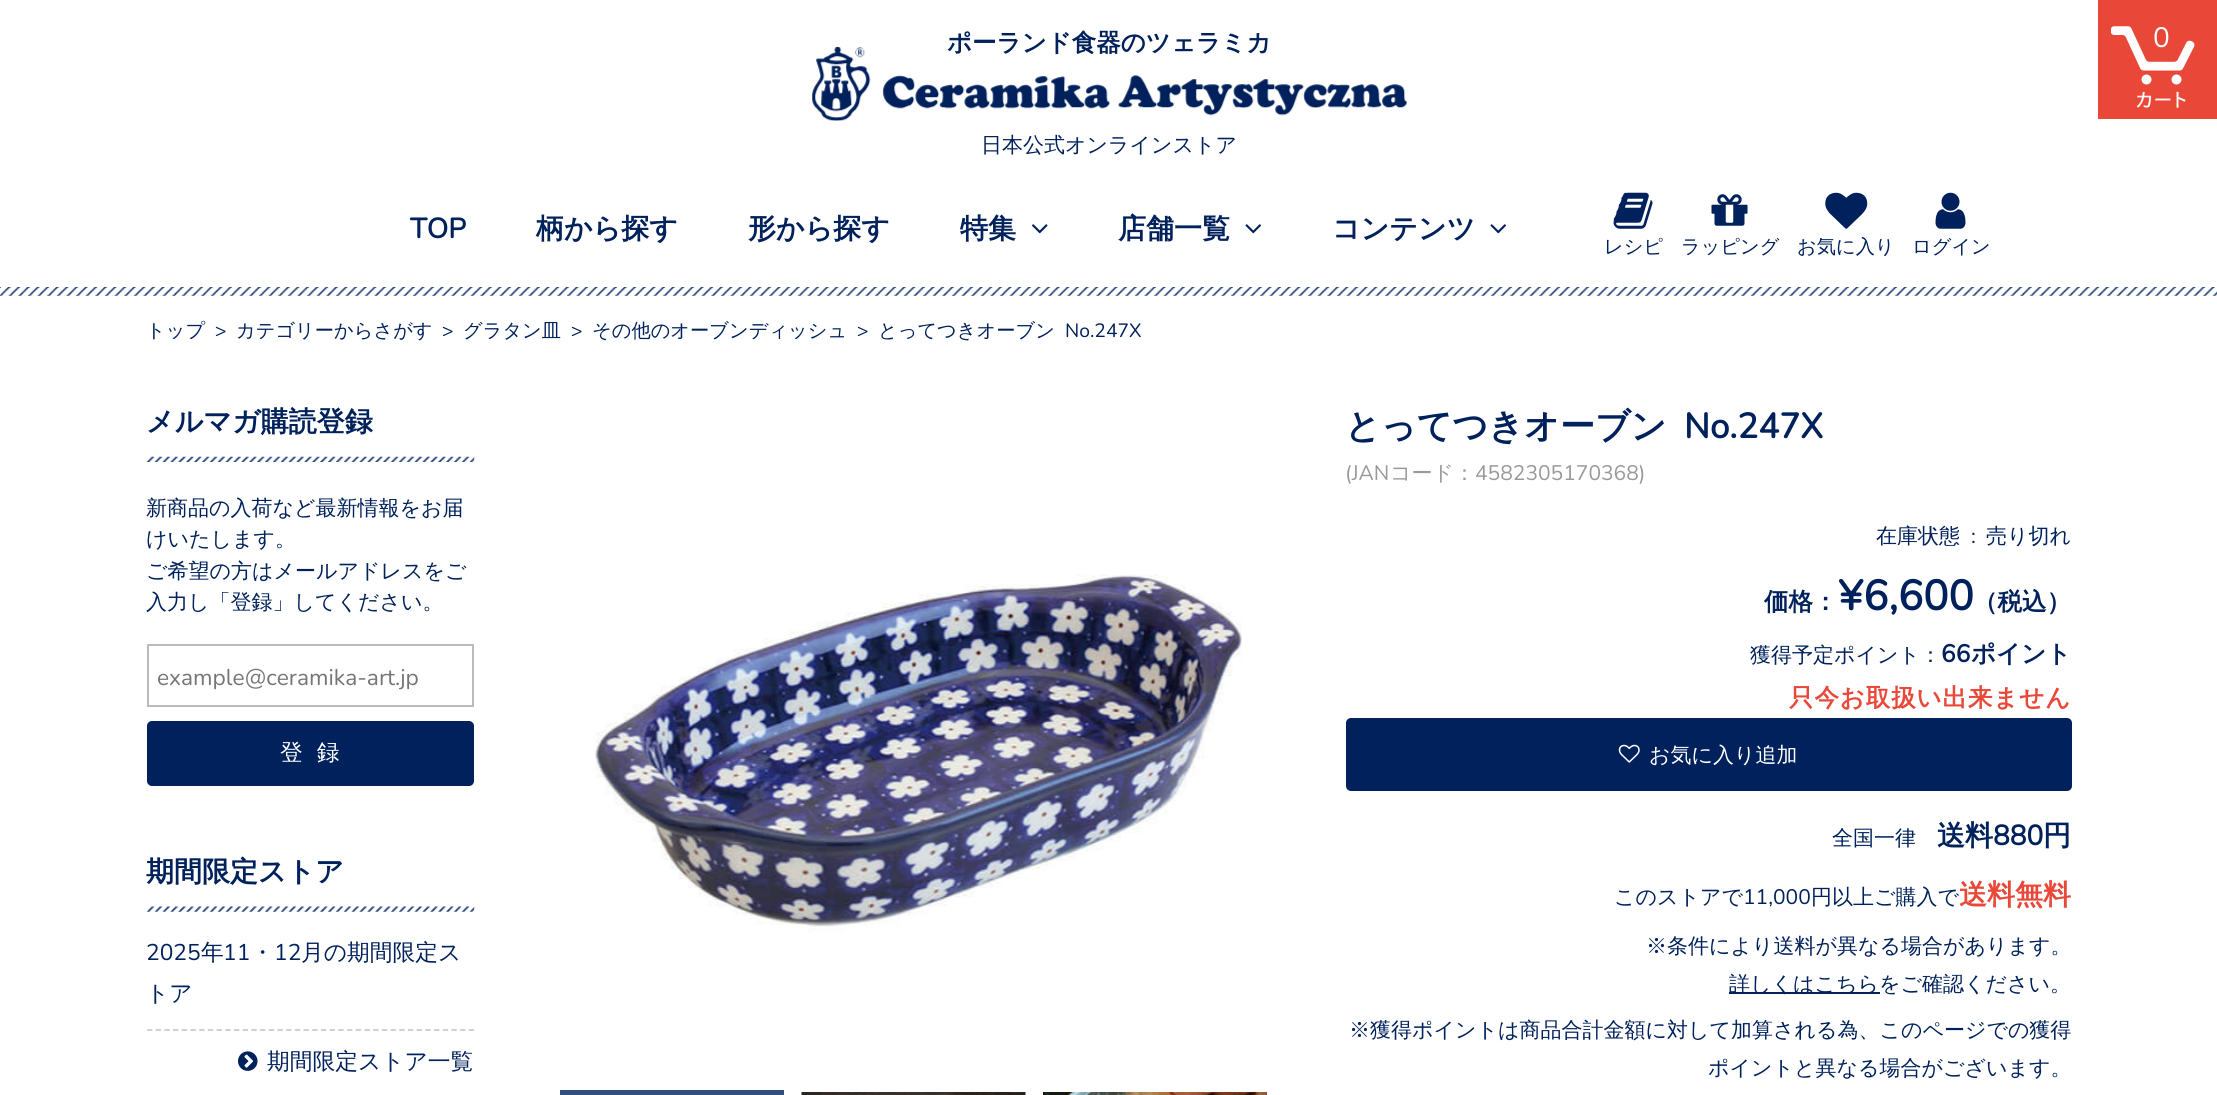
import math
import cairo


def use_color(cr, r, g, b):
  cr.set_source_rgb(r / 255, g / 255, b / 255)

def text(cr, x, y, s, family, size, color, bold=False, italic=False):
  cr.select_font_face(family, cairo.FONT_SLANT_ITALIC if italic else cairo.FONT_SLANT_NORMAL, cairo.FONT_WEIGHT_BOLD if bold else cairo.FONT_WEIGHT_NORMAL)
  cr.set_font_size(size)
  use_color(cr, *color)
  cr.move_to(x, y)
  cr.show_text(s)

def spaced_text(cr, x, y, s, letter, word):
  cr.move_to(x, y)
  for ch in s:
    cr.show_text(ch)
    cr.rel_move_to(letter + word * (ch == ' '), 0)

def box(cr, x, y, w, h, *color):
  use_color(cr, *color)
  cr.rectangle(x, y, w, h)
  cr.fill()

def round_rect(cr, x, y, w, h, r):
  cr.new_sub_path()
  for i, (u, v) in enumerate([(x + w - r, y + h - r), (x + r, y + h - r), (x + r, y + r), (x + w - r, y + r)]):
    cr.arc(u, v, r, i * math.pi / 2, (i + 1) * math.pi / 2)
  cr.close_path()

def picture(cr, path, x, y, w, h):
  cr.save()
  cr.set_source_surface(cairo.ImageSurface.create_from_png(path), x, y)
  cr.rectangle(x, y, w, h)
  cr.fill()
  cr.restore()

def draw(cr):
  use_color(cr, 255, 255, 255)
  cr.paint()
  picture(cr, "img_02.png", 1032, 224, 16, 10)
  picture(cr, "img_03.png", 1245, 224, 16, 10)
  picture(cr, "img_03.png", 1490, 224, 16, 10)
  picture(cr, "img_04.png", 1613, 192, 40, 37)
  picture(cr, "img_05.png", 1711, 194, 37, 32)
  picture(cr, "img_06.png", 1825, 192, 43, 37)
  picture(cr, "img_07.png", 1935, 192, 31, 37)
  box(cr, 2098, 0, 119, 119, 233, 71, 56)
  picture(cr, "img_08.png", 2111, 26, 84, 82)
  picture(cr, "img_09.png", 0, 287, 2217, 9)
  picture(cr, "img_10.png", 147, 456, 328, 6)
  cr.rectangle(148, 645, 325, 61)
  use_color(cr, 187, 187, 187)
  cr.stroke()
  use_color(cr, 0, 33, 91)
  round_rect(cr, 147, 721, 327, 65, 5)
  cr.fill()
  picture(cr, "img_11.png", 147, 906, 328, 6)
  cr.new_path()
  cr.move_to(147, 1030)
  cr.line_to(474, 1030)
  use_color(cr, 204, 204, 204)
  cr.set_line_width(1.8)
  cr.set_dash([5.25, 3.45])
  cr.stroke()
  picture(cr, "img_12.png", 238, 1051, 20, 20)
  picture(cr, "img_13.png", 595, 574, 647, 359)
  cr.rectangle(563.5, 1093.5, 217, 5)
  use_color(cr, 51, 77, 124)
  cr.set_line_width(7)
  cr.set_dash([])
  cr.stroke()
  picture(cr, "img_14.png", 801, 1092, 225, 3)
  picture(cr, "img_15.png", 1043, 1092, 224, 3)
  use_color(cr, 0, 33, 91)
  round_rect(cr, 1346, 718, 726, 73, 5)
  cr.fill()
  picture(cr, "img_16.png", 1618, 744, 22, 19)
  box(cr, 1729, 992, 151, 2, 0, 33, 91)
  text(cr, 947, 51, "ポーランド食器のツェラミカ", "WenQuanYi Zen Hei", 24.5, (0, 33, 91), bold=True)
  picture(cr, "img_01.png", 812, 47, 595, 74)
  text(cr, 981, 152, "日本公式オンラインストア", "WenQuanYi Zen Hei Medium", 21, (0, 33, 91))
  text(cr, 410, 238, "TOP", "Nunito", 28, (0, 33, 91), bold=True)
  text(cr, 536, 238, "柄から探す", "WenQuanYi Zen Hei", 28, (0, 33, 91), bold=True)
  text(cr, 748, 238, "形から探す", "WenQuanYi Zen Hei", 28, (0, 33, 91), bold=True)
  text(cr, 960, 238, "特集", "WenQuanYi Zen Hei", 28, (0, 33, 91), bold=True)
  text(cr, 1118, 238, "店舗一覧", "WenQuanYi Zen Hei", 28, (0, 33, 91), bold=True)
  text(cr, 1332, 238, "コンテンツ", "WenQuanYi Zen Hei", 28, (0, 33, 91), bold=True)
  text(cr, 1604, 253, "レシピ", "WenQuanYi Zen Hei Medium", 19.25, (0, 33, 91))
  text(cr, 1681, 253, "ラッピング", "WenQuanYi Zen Hei Medium", 19.25, (0, 33, 91))
  text(cr, 1797, 253, "お気に入り", "WenQuanYi Zen Hei Medium", 19.25, (0, 33, 91))
  text(cr, 1912, 253, "ログイン", "WenQuanYi Zen Hei Medium", 19.25, (0, 33, 91))
  text(cr, 2153, 47, "0", "Nunito ExtraLight", 28, (255, 255, 255))
  text(cr, 146, 337, "トップ", "WenQuanYi Zen Hei Medium", 19.25, (0, 33, 91))
  text(cr, 215, 337, ">", "Nunito ExtraLight", 19.25, (0, 33, 91))
  text(cr, 236, 337, "カテゴリーからさがす", "WenQuanYi Zen Hei Medium", 19.25, (0, 33, 91))
  text(cr, 442, 337, ">", "Nunito ExtraLight", 19.25, (0, 33, 91))
  text(cr, 463, 337, "グラタン皿", "WenQuanYi Zen Hei Medium", 19.25, (0, 33, 91))
  text(cr, 571, 337, ">", "Nunito ExtraLight", 19.25, (0, 33, 91))
  text(cr, 592, 337, "その他のオーブンディッシュ", "WenQuanYi Zen Hei Medium", 19.25, (0, 33, 91))
  text(cr, 857, 337, ">", "Nunito ExtraLight", 19.25, (0, 33, 91))
  text(cr, 878, 337, "とってつきオーブン", "WenQuanYi Zen Hei Medium", 19.25, (0, 33, 91))
  text(cr, 1065, 337, "No.247X", "Nunito ExtraLight", 19.25, (0, 33, 91))
  text(cr, 146, 431, "メルマガ購読登録", "WenQuanYi Zen Hei", 28, (0, 33, 91), bold=True)
  text(cr, 146, 515, "新商品の入荷など最新情報をお届", "WenQuanYi Zen Hei Medium", 21, (0, 33, 91))
  text(cr, 146, 546, "けいたします。", "WenQuanYi Zen Hei Medium", 21, (0, 33, 91))
  text(cr, 146, 578, "ご希望の方はメールアドレスをご", "WenQuanYi Zen Hei Medium", 21, (0, 33, 91))
  text(cr, 146, 609, "入力し「登録」してください。", "WenQuanYi Zen Hei Medium", 21, (0, 33, 91))
  cr.save()
  cr.rectangle(158, 662, 306, 31)
  cr.clip()
  text(cr, 157, 685, "example@ceramika-art.jp", "Nunito ExtraLight", 22.75, (117, 117, 117))
  cr.restore()
  cr.set_font_size(22.75)
  use_color(cr, 255, 255, 255)
  spaced_text(cr, 280, 760, "登録", 14, 0)
  text(cr, 146, 881, "期間限定ストア", "WenQuanYi Zen Hei", 28, (0, 33, 91), bold=True)
  text(cr, 146, 960, "2025", "Nunito ExtraLight", 22.75, (0, 33, 91))
  text(cr, 201, 960, "年", "WenQuanYi Zen Hei Medium", 22.75, (0, 33, 91))
  text(cr, 223, 960, "11", "Nunito ExtraLight", 22.75, (0, 33, 91))
  text(cr, 251, 960, "・", "WenQuanYi Zen Hei Medium", 22.75, (0, 33, 91))
  text(cr, 274, 960, "12", "Nunito ExtraLight", 22.75, (0, 33, 91))
  text(cr, 301, 960, "月の期間限定ス", "WenQuanYi Zen Hei Medium", 22.75, (0, 33, 91))
  text(cr, 146, 1001, "トア", "WenQuanYi Zen Hei Medium", 22.75, (0, 33, 91))
  text(cr, 267, 1069, "期間限定ストア一覧", "WenQuanYi Zen Hei Medium", 22.75, (0, 33, 91))
  text(cr, 1345, 438, "とってつきオーブン", "WenQuanYi Zen Hei", 35, (0, 33, 91), bold=True)
  text(cr, 1684, 438, "No.247X", "Nunito", 35, (0, 33, 91), bold=True)
  text(cr, 1345, 480, "(JAN", "Nunito ExtraLight", 21, (153, 153, 153))
  text(cr, 1390, 480, "コード：", "WenQuanYi Zen Hei Medium", 21, (153, 153, 153))
  text(cr, 1475, 480, "4582305170368)", "Nunito ExtraLight", 21, (153, 153, 153))
  text(cr, 1876, 543, "在庫状態", "WenQuanYi Zen Hei Medium", 21, (0, 33, 91))
  text(cr, 1971, 543, ":", "Nunito ExtraLight", 21, (0, 33, 91))
  text(cr, 1986, 543, "売り切れ", "WenQuanYi Zen Hei Medium", 21, (0, 33, 91))
  text(cr, 1764, 610, "価格：", "WenQuanYi Zen Hei", 24.5, (0, 33, 91), bold=True)
  text(cr, 1838, 610, "¥6,600", "Nunito", 42, (0, 33, 91), bold=True)
  text(cr, 1973, 610, "（税込）", "WenQuanYi Zen Hei", 24.5, (0, 33, 91), bold=True)
  text(cr, 1750, 662, "獲得予定ポイント：", "WenQuanYi Zen Hei Medium", 21, (0, 33, 91))
  text(cr, 1941, 662, "66", "Nunito", 24.5, (0, 33, 91), bold=True)
  text(cr, 1971, 662, "ポイント", "WenQuanYi Zen Hei", 24.5, (0, 33, 91), bold=True)
  use_color(cr, 233, 71, 56)
  spaced_text(cr, 1789, 706, "只今お取扱い出来ません", 0.9, 0)
  text(cr, 1649, 762, "お気に入り追加", "WenQuanYi Zen Hei Medium", 21, (255, 255, 255))
  text(cr, 1832, 845, "全国一律", "WenQuanYi Zen Hei Medium", 21, (0, 33, 91))
  text(cr, 1937, 845, "送料", "WenQuanYi Zen Hei", 28, (0, 33, 91), bold=True)
  text(cr, 1993, 845, "880", "Nunito", 28, (0, 33, 91), bold=True)
  text(cr, 2043, 845, "円", "WenQuanYi Zen Hei", 28, (0, 33, 91), bold=True)
  text(cr, 1614, 904, "このストアで", "WenQuanYi Zen Hei Medium", 21, (0, 33, 91))
  text(cr, 1743, 904, "11,000", "Nunito ExtraLight", 21, (0, 33, 91))
  text(cr, 1811, 904, "円以上ご購入で", "WenQuanYi Zen Hei Medium", 21, (0, 33, 91))
  text(cr, 1959, 904, "送料無料", "WenQuanYi Zen Hei", 28, (233, 71, 56), bold=True)
  text(cr, 1646, 953, "※条件により送料が異なる場合があります。", "WenQuanYi Zen Hei Medium", 21, (0, 33, 91))
  text(cr, 1729, 991, "詳しくはこちらをご確認ください。", "WenQuanYi Zen Hei Medium", 21, (0, 33, 91))
  text(cr, 1349, 1037, "※獲得ポイントは商品合計金額に対して加算される為、このページでの獲得", "WenQuanYi Zen Hei Medium", 21, (0, 33, 91))
  text(cr, 1708, 1075, "ポイントと異なる場合がございます。", "WenQuanYi Zen Hei Medium", 21, (0, 33, 91))


surface = cairo.ImageSurface(cairo.FORMAT_RGB24, 2217, 1095)
cr = cairo.Context(surface)
options = cairo.FontOptions()
options.set_hint_metrics(cairo.HINT_METRICS_OFF)
options.set_hint_style(cairo.HINT_STYLE_NONE)
cr.set_font_options(options)
cr.set_miter_limit(4)
draw(cr)
surface.write_to_png("out.png")
